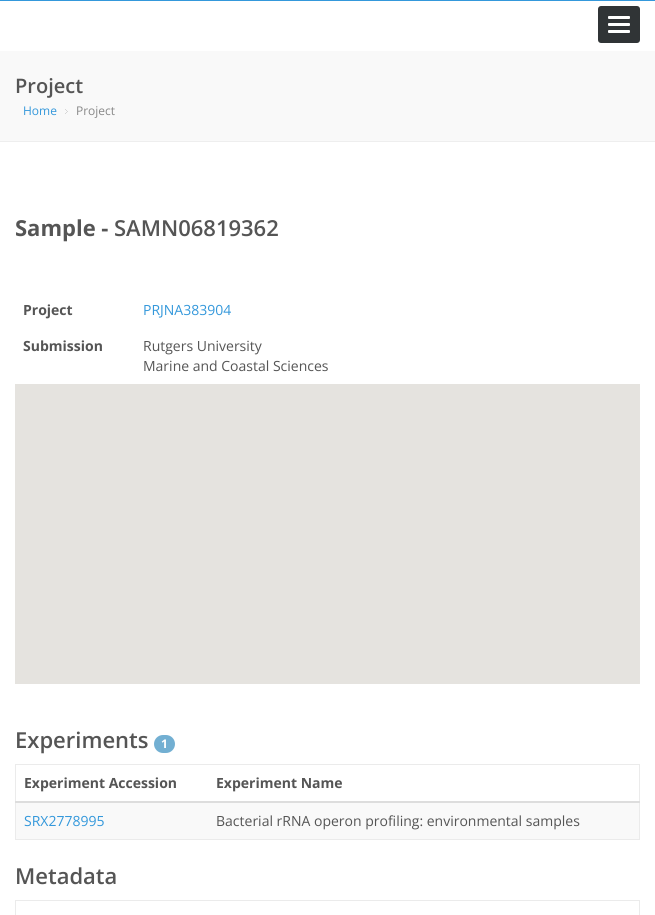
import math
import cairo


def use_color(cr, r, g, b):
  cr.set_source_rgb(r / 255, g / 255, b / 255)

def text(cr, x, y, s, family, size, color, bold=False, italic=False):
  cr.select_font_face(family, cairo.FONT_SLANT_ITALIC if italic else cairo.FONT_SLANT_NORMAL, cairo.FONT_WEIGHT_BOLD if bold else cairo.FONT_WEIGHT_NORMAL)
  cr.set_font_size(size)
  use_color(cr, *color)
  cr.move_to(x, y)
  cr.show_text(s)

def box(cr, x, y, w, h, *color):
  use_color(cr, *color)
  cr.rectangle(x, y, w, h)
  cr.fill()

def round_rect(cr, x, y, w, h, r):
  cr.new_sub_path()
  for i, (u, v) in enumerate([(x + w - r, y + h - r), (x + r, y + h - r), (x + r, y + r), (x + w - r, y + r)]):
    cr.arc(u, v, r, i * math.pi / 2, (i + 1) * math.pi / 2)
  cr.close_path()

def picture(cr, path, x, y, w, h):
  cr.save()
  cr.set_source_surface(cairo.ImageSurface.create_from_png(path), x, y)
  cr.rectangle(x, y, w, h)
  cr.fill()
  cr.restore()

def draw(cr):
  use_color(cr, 255, 255, 255)
  cr.paint()
  box(cr, 0, 0, 655, 1, 52, 152, 219)
  use_color(cr, 48, 52, 54)
  round_rect(cr, 598, 6, 42, 37, 3)
  cr.fill()
  use_color(cr, 255, 255, 255)
  round_rect(cr, 608, 16, 22, 3, 1)
  cr.fill()
  round_rect(cr, 608, 23, 22, 3, 1)
  cr.fill()
  round_rect(cr, 608, 30, 22, 3, 1)
  cr.fill()
  box(cr, 0, 51, 655, 90, 249, 249, 249)
  box(cr, 0, 141, 655, 1, 238, 238, 238)
  picture(cr, "img_01.png", 65, 109, 3, 5)
  box(cr, 15, 384, 625, 300, 229, 227, 223)
  use_color(cr, 114, 175, 210)
  round_rect(cr, 154, 735, 21, 18, 9)
  cr.fill()
  cr.rectangle(15.5, 764.5, 624, 75)
  use_color(cr, 235, 235, 235)
  cr.set_line_width(1)
  cr.stroke()
  box(cr, 15, 801, 625, 2, 221, 221, 221)
  box(cr, 16, 803, 623, 36, 249, 249, 249)
  cr.rectangle(15.5, 900.5, 624, 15)
  use_color(cr, 235, 235, 235)
  cr.stroke()
  text(cr, 15, 93, "Project", "Open Sans SemiBold", 20, (85, 85, 85))
  text(cr, 23, 115, "Home", "Open Sans", 12, (52, 152, 219))
  text(cr, 76, 115, "Project", "Open Sans", 12, (136, 136, 136))
  text(cr, 15, 236, "Sample -", "Open Sans", 22, (85, 85, 85), bold=True)
  text(cr, 114, 236, "SAMN06819362", "Open Sans SemiBold", 22, (85, 85, 85))
  text(cr, 23, 315, "Project", "Open Sans", 14, (85, 85, 85), bold=True)
  text(cr, 143, 315, "PRJNA383904", "Open Sans", 14, (52, 152, 219))
  text(cr, 23, 351, "Submission", "Open Sans", 14, (85, 85, 85), bold=True)
  text(cr, 143, 351, "Rutgers University", "Open Sans", 14, (85, 85, 85))
  text(cr, 143, 371, "Marine and Coastal Sciences", "Open Sans", 14, (85, 85, 85))
  text(cr, 15, 748, "Experiments", "Open Sans SemiBold", 22, (85, 85, 85))
  text(cr, 161, 748, "1", "Open Sans", 12, (255, 255, 255), bold=True)
  text(cr, 24, 788, "Experiment Accession", "Open Sans", 14, (85, 85, 85), bold=True)
  text(cr, 216, 788, "Experiment Name", "Open Sans", 14, (85, 85, 85), bold=True)
  text(cr, 24, 826, "SRX2778995", "Open Sans", 14, (52, 152, 219))
  text(cr, 216, 826, "Bacterial rRNA operon profiling: environmental samples", "Open Sans", 14, (85, 85, 85))
  text(cr, 15, 884, "Metadata", "Open Sans SemiBold", 22, (85, 85, 85))


surface = cairo.ImageSurface(cairo.FORMAT_RGB24, 655, 915)
cr = cairo.Context(surface)
options = cairo.FontOptions()
options.set_hint_metrics(cairo.HINT_METRICS_OFF)
options.set_hint_style(cairo.HINT_STYLE_NONE)
cr.set_font_options(options)
cr.set_miter_limit(4)
draw(cr)
surface.write_to_png("out.png")
